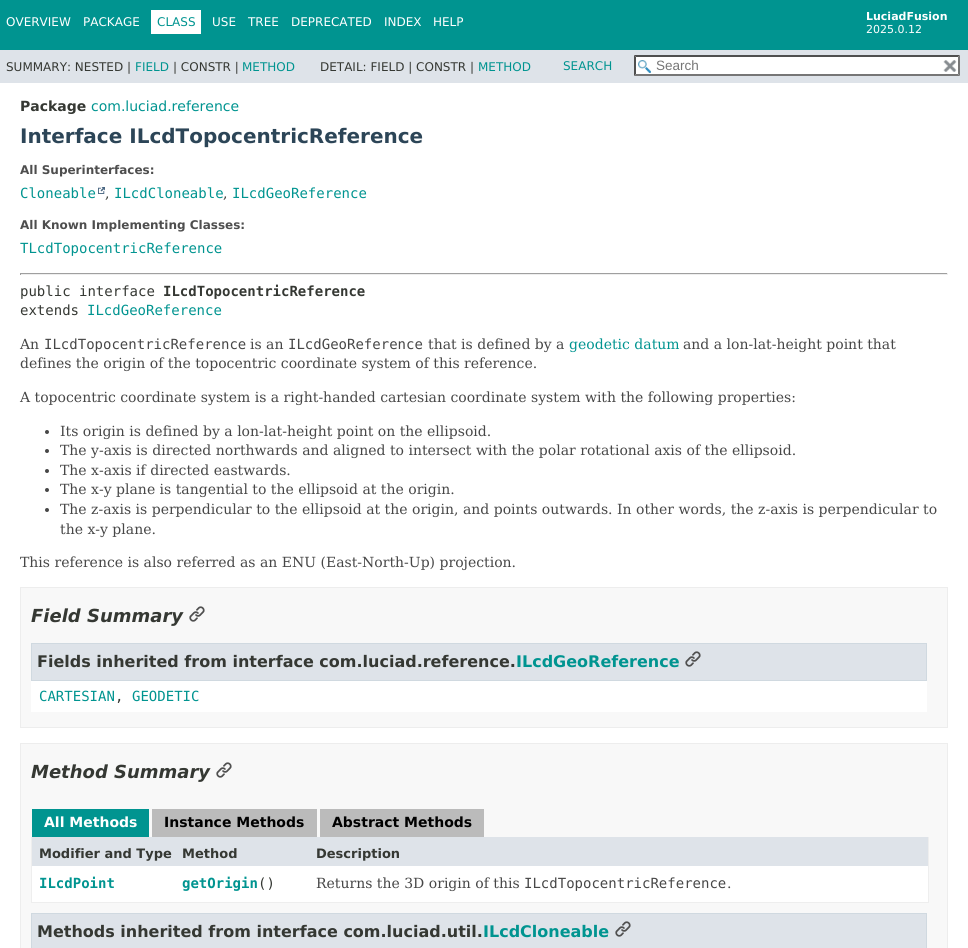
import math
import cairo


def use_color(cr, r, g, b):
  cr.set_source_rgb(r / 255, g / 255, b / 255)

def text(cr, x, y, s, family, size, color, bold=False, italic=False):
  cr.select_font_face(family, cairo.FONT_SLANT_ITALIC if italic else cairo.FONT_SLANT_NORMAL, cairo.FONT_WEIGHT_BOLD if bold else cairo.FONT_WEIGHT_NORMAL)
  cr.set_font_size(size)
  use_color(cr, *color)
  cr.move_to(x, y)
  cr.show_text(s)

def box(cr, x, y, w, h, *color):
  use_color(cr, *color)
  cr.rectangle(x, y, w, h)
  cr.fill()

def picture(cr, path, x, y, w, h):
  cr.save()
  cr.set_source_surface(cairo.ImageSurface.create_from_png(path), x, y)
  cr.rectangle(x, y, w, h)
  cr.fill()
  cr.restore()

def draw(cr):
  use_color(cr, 255, 255, 255)
  cr.paint()
  box(cr, 0, 0, 968, 50, 0, 148, 144)
  box(cr, 151, 10, 50, 24, 255, 255, 255)
  box(cr, 0, 50, 968, 33, 222, 227, 233)
  box(cr, 634, 55, 326, 21, 255, 255, 255)
  picture(cr, "img_01.png", 638, 60, 13, 13)
  use_color(cr, 79, 79, 79)
  cr.new_path()
  cr.move_to(634, 55)
  cr.line_to(960, 55)
  cr.line_to(958, 57)
  cr.line_to(636, 57)
  cr.close_path()
  cr.fill()
  use_color(cr, 118, 118, 118)
  cr.new_path()
  cr.move_to(960, 55)
  cr.line_to(960, 76)
  cr.line_to(958, 74)
  cr.line_to(958, 57)
  cr.close_path()
  cr.fill()
  cr.new_path()
  cr.move_to(960, 76)
  cr.line_to(634, 76)
  cr.line_to(636, 74)
  cr.line_to(958, 74)
  cr.close_path()
  cr.fill()
  use_color(cr, 79, 79, 79)
  cr.new_path()
  cr.move_to(634, 76)
  cr.line_to(634, 55)
  cr.line_to(636, 57)
  cr.line_to(636, 74)
  cr.close_path()
  cr.fill()
  picture(cr, "img_02.png", 943, 60, 14, 12)
  picture(cr, "img_03.png", 98, 187, 7, 7)
  box(cr, 20, 273, 928, 1, 159, 159, 159)
  box(cr, 947, 273, 1, 2, 238, 238, 238)
  box(cr, 20, 274, 928, 1, 238, 238, 238)
  box(cr, 20, 273, 1, 2, 159, 159, 159)
  use_color(cr, 71, 71, 71)
  cr.arc(47, 432, 2, 0, 2 * math.pi)
  cr.fill()
  cr.arc(47, 451, 2, 0, 2 * math.pi)
  cr.fill()
  cr.arc(47, 471, 2, 0, 2 * math.pi)
  cr.fill()
  cr.arc(47, 490, 2, 0, 2 * math.pi)
  cr.fill()
  cr.arc(47, 510, 2, 0, 2 * math.pi)
  cr.fill()
  use_color(cr, 248, 248, 248)
  cr.rectangle(20.5, 587.5, 927, 140)
  cr.fill_preserve()
  use_color(cr, 237, 237, 237)
  cr.set_line_width(1)
  cr.stroke()
  picture(cr, "img_04.png", 189, 606, 16, 16)
  box(cr, 31, 681, 896, 31, 255, 255, 255)
  use_color(cr, 222, 227, 233)
  cr.rectangle(31.5, 643.5, 895, 37)
  cr.fill_preserve()
  use_color(cr, 208, 217, 224)
  cr.stroke()
  picture(cr, "img_05.png", 685, 651, 16, 16)
  use_color(cr, 248, 248, 248)
  cr.rectangle(20.5, 743.5, 927, 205)
  cr.fill_preserve()
  use_color(cr, 237, 237, 237)
  cr.stroke()
  picture(cr, "img_04.png", 216, 762, 16, 16)
  box(cr, 32, 809, 117, 28, 0, 148, 144)
  box(cr, 152, 809, 165, 28, 187, 187, 187)
  box(cr, 320, 809, 164, 28, 187, 187, 187)
  box(cr, 928, 837, 1, 66, 238, 238, 238)
  box(cr, 31, 902, 898, 1, 238, 238, 238)
  box(cr, 31, 837, 1, 66, 238, 238, 238)
  box(cr, 32, 837, 277, 29, 222, 227, 233)
  box(cr, 309, 837, 619, 29, 222, 227, 233)
  box(cr, 32, 866, 277, 36, 255, 255, 255)
  box(cr, 309, 866, 619, 36, 255, 255, 255)
  use_color(cr, 222, 227, 233)
  cr.rectangle(31.5, 913.5, 895, 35)
  cr.fill_preserve()
  use_color(cr, 208, 217, 224)
  cr.stroke()
  picture(cr, "img_05.png", 615, 921, 16, 16)
  text(cr, 6, 26, "OVERVIEW", "DejaVu Sans", 12, (255, 255, 255))
  text(cr, 83, 26, "PACKAGE", "DejaVu Sans", 12, (255, 255, 255))
  text(cr, 157, 26, "CLASS", "DejaVu Sans", 12, (0, 148, 144))
  text(cr, 212, 26, "USE", "DejaVu Sans", 12, (255, 255, 255))
  text(cr, 248, 26, "TREE", "DejaVu Sans", 12, (255, 255, 255))
  text(cr, 291, 26, "DEPRECATED", "DejaVu Sans", 12, (255, 255, 255))
  text(cr, 384, 26, "INDEX", "DejaVu Sans", 12, (255, 255, 255))
  text(cr, 433, 26, "HELP", "DejaVu Sans", 12, (255, 255, 255))
  text(cr, 866, 20, "LuciadFusion", "DejaVu Sans", 11, (255, 255, 255), bold=True)
  text(cr, 866, 33, "2025.0.12", "DejaVu Sans", 11, (255, 255, 255))
  text(cr, 6, 71, "SUMMARY: NESTED |", "DejaVu Sans", 12, (53, 56, 51))
  text(cr, 135, 71, "FIELD", "DejaVu Sans", 12, (0, 148, 144))
  text(cr, 173, 71, "| CONSTR |", "DejaVu Sans", 12, (53, 56, 51))
  text(cr, 242, 71, "METHOD", "DejaVu Sans", 12, (0, 148, 144))
  text(cr, 320, 71, "DETAIL: FIELD | CONSTR |", "DejaVu Sans", 12, (53, 56, 51))
  text(cr, 478, 71, "METHOD", "DejaVu Sans", 12, (0, 148, 144))
  text(cr, 563, 70, "SEARCH", "DejaVu Sans", 12, (0, 148, 144))
  text(cr, 656, 70, "Search", "Liberation Sans", 13.5, (117, 117, 117))
  text(cr, 20, 111, "Package", "DejaVu Sans", 14, (53, 56, 51), bold=True)
  text(cr, 91, 111, "com.luciad.reference", "DejaVu Sans", 14, (0, 148, 144))
  text(cr, 20, 143, "Interface ILcdTopocentricReference", "DejaVu Sans", 20, (44, 69, 87), bold=True)
  text(cr, 20, 174, "All Superinterfaces:", "DejaVu Sans", 12, (78, 78, 78), bold=True)
  text(cr, 20, 198, "Cloneable", "DejaVu Sans Mono", 14, (0, 148, 144))
  text(cr, 105, 198, ",", "DejaVu Serif", 14, (53, 56, 51))
  text(cr, 114, 198, "ILcdCloneable", "DejaVu Sans Mono", 14, (0, 148, 144))
  text(cr, 223, 198, ",", "DejaVu Serif", 14, (53, 56, 51))
  text(cr, 232, 198, "ILcdGeoReference", "DejaVu Sans Mono", 14, (0, 148, 144))
  text(cr, 20, 229, "All Known Implementing Classes:", "DejaVu Sans", 12, (78, 78, 78), bold=True)
  text(cr, 20, 253, "TLcdTopocentricReference", "DejaVu Sans Mono", 14, (0, 148, 144))
  text(cr, 20, 296, "public interface", "DejaVu Sans Mono", 14, (53, 56, 51))
  text(cr, 163, 296, "ILcdTopocentricReference", "DejaVu Sans Mono", 14, (53, 56, 51), bold=True)
  text(cr, 20, 315, "extends", "DejaVu Sans Mono", 14, (53, 56, 51))
  text(cr, 87, 315, "ILcdGeoReference", "DejaVu Sans Mono", 14, (0, 148, 144))
  text(cr, 20, 349, "An", "DejaVu Serif", 14, (71, 71, 71))
  text(cr, 44, 349, "ILcdTopocentricReference", "DejaVu Sans Mono", 14, (71, 71, 71))
  text(cr, 250, 349, "is an", "DejaVu Serif", 14, (71, 71, 71))
  text(cr, 288, 349, "ILcdGeoReference", "DejaVu Sans Mono", 14, (71, 71, 71))
  text(cr, 428, 349, "that is defined by a", "DejaVu Serif", 14, (71, 71, 71))
  text(cr, 569, 349, "geodetic datum", "DejaVu Serif", 14, (0, 148, 144))
  text(cr, 683, 349, "and a lon-lat-height point that", "DejaVu Serif", 14, (71, 71, 71))
  text(cr, 20, 368, "defines the origin of the topocentric coordinate system of this reference.", "DejaVu Serif", 14, (71, 71, 71))
  text(cr, 20, 402, "A topocentric coordinate system is a right-handed cartesian coordinate system with the following properties:", "DejaVu Serif", 14, (71, 71, 71))
  text(cr, 60, 436, "Its origin is defined by a lon-lat-height point on the ellipsoid.", "DejaVu Serif", 14, (71, 71, 71))
  text(cr, 60, 455, "The y-axis is directed northwards and aligned to intersect with the polar rotational axis of the ellipsoid.", "DejaVu Serif", 14, (71, 71, 71))
  text(cr, 60, 475, "The x-axis if directed eastwards.", "DejaVu Serif", 14, (71, 71, 71))
  text(cr, 60, 494, "The x-y plane is tangential to the ellipsoid at the origin.", "DejaVu Serif", 14, (71, 71, 71))
  text(cr, 60, 514, "The z-axis is perpendicular to the ellipsoid at the origin, and points outwards. In other words, the z-axis is perpendicular to", "DejaVu Serif", 14, (71, 71, 71))
  text(cr, 60, 534, "the x-y plane.", "DejaVu Serif", 14, (71, 71, 71))
  text(cr, 20, 567, "This reference is also referred as an ENU (East-North-Up) projection.", "DejaVu Serif", 14, (71, 71, 71))
  text(cr, 31, 622, "Field Summary", "DejaVu Sans", 18, (53, 56, 51), bold=True, italic=True)
  text(cr, 37, 667, "Fields inherited from interface com.luciad.reference.", "DejaVu Sans", 16, (53, 56, 51), bold=True)
  text(cr, 516, 667, "ILcdGeoReference", "DejaVu Sans", 16, (0, 148, 144), bold=True)
  text(cr, 39, 701, "CARTESIAN", "DejaVu Sans Mono", 14, (0, 148, 144))
  text(cr, 115, 701, ",", "DejaVu Sans Mono", 14, (53, 56, 51))
  text(cr, 132, 701, "GEODETIC", "DejaVu Sans Mono", 14, (0, 148, 144))
  text(cr, 31, 778, "Method Summary", "DejaVu Sans", 18, (53, 56, 51), bold=True, italic=True)
  text(cr, 44, 827, "All Methods", "DejaVu Sans", 14, (255, 255, 255), bold=True)
  text(cr, 164, 827, "Instance Methods", "DejaVu Sans", 14, (0, 0, 0), bold=True)
  text(cr, 332, 827, "Abstract Methods", "DejaVu Sans", 14, (0, 0, 0), bold=True)
  text(cr, 39, 858, "Modifier and Type", "DejaVu Sans", 13, (53, 56, 51), bold=True)
  text(cr, 182, 858, "Method", "DejaVu Sans", 13, (53, 56, 51), bold=True)
  text(cr, 316, 858, "Description", "DejaVu Sans", 13, (53, 56, 51), bold=True)
  text(cr, 39, 888, "ILcdPoint", "DejaVu Sans Mono", 14, (0, 148, 144), bold=True)
  text(cr, 182, 888, "getOrigin", "DejaVu Sans Mono", 14, (0, 148, 144), bold=True)
  text(cr, 258, 888, "()", "DejaVu Sans Mono", 14, (53, 56, 51))
  text(cr, 316, 888, "Returns the 3D origin of this", "DejaVu Serif", 14, (71, 71, 71))
  text(cr, 524, 888, "ILcdTopocentricReference", "DejaVu Sans Mono", 14, (71, 71, 71))
  text(cr, 727, 888, ".", "DejaVu Serif", 14, (71, 71, 71))
  text(cr, 37, 937, "Methods inherited from interface com.luciad.util.", "DejaVu Sans", 16, (53, 56, 51), bold=True)
  text(cr, 483, 937, "ILcdCloneable", "DejaVu Sans", 16, (0, 148, 144), bold=True)


surface = cairo.ImageSurface(cairo.FORMAT_RGB24, 968, 948)
cr = cairo.Context(surface)
options = cairo.FontOptions()
options.set_hint_metrics(cairo.HINT_METRICS_OFF)
options.set_hint_style(cairo.HINT_STYLE_NONE)
cr.set_font_options(options)
cr.set_miter_limit(4)
draw(cr)
surface.write_to_png("out.png")
